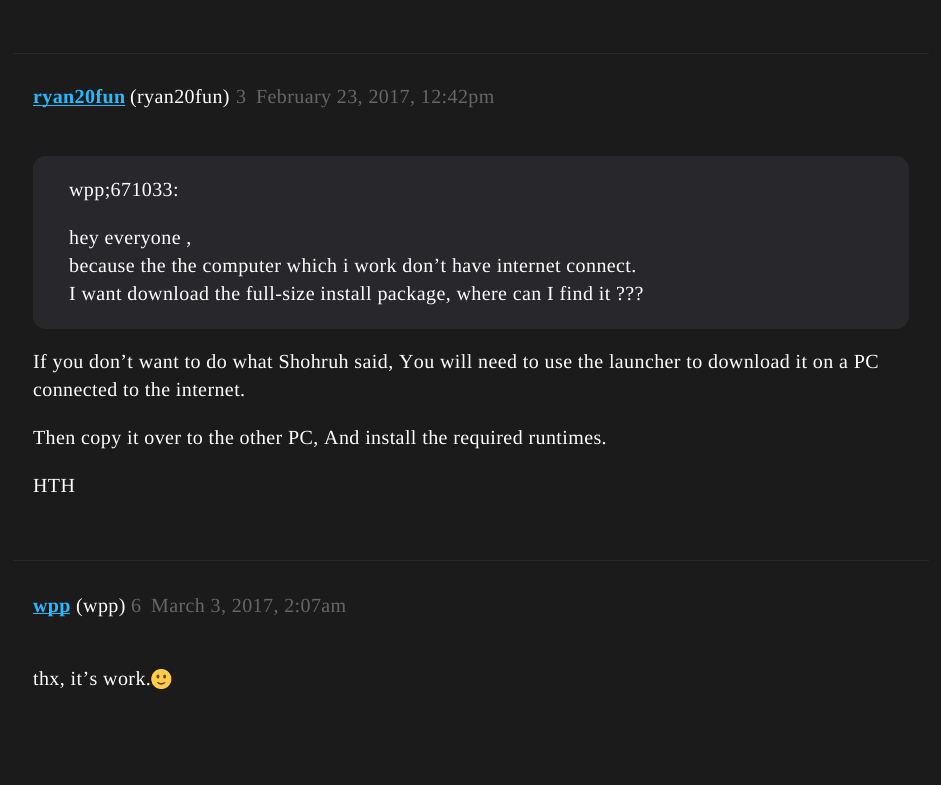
import math
import cairo


def use_color(cr, r, g, b):
  cr.set_source_rgb(r / 255, g / 255, b / 255)

def spaced_text(cr, x, y, s, letter, word):
  cr.move_to(x, y)
  for ch in s:
    cr.show_text(ch)
    cr.rel_move_to(letter + word * (ch == ' '), 0)

def box(cr, x, y, w, h, *color):
  use_color(cr, *color)
  cr.rectangle(x, y, w, h)
  cr.fill()

def round_rect(cr, x, y, w, h, r):
  cr.new_sub_path()
  for i, (u, v) in enumerate([(x + w - r, y + h - r), (x + r, y + h - r), (x + r, y + r), (x + w - r, y + r)]):
    cr.arc(u, v, r, i * math.pi / 2, (i + 1) * math.pi / 2)
  cr.close_path()

def picture(cr, path, x, y, w, h):
  cr.save()
  cr.set_source_surface(cairo.ImageSurface.create_from_png(path), x, y)
  cr.rectangle(x, y, w, h)
  cr.fill()
  cr.restore()

def draw(cr):
  use_color(cr, 27, 27, 27)
  cr.paint()
  box(cr, 13, 53, 916, 1, 40, 40, 44)
  box(cr, 33, 105, 92, 1, 38, 187, 255)
  use_color(cr, 40, 40, 44)
  cr.new_path()
  cr.move_to(46, 156)
  cr.line_to(896, 156)
  cr.curve_to(903, 156, 909, 162, 909, 169)
  cr.line_to(909, 205)
  cr.line_to(33, 205)
  cr.line_to(33, 169)
  cr.curve_to(33, 162, 39, 156, 46, 156)
  cr.close_path()
  cr.fill()
  cr.save()
  round_rect(cr, 33, 156, 876, 173, 13)
  cr.clip()
  box(cr, 33, 156, 6, 49, 39, 39, 42)
  cr.restore()
  cr.new_path()
  cr.move_to(33, 205)
  cr.line_to(909, 205)
  cr.line_to(909, 316)
  cr.curve_to(909, 323, 903, 329, 896, 329)
  cr.line_to(46, 329)
  cr.curve_to(39, 329, 33, 323, 33, 316)
  cr.close_path()
  cr.fill()
  cr.save()
  round_rect(cr, 33, 156, 876, 173, 13)
  cr.clip()
  box(cr, 33, 205, 6, 124, 39, 39, 42)
  cr.restore()
  box(cr, 13, 560, 916, 1, 40, 40, 44)
  box(cr, 33, 613, 37, 1, 38, 187, 255)
  picture(cr, "img_01.png", 151, 669, 21, 20)
  cr.select_font_face("Liberation Serif", cairo.FONT_SLANT_NORMAL, cairo.FONT_WEIGHT_BOLD)
  cr.set_font_size(20)
  spaced_text(cr, 33, 103, "ryan20fun", 0.4, 0)
  cr.select_font_face("Liberation Serif")
  use_color(cr, 255, 255, 255)
  spaced_text(cr, 130, 103, "(ryan20fun)", 0.4, 0)
  use_color(cr, 102, 102, 102)
  spaced_text(cr, 236, 103, "3", 0.4, 0)
  spaced_text(cr, 256, 103, "February 23, 2017, 12:42pm", 0.4, 0)
  use_color(cr, 255, 255, 255)
  spaced_text(cr, 69, 196, "wpp;671033:", 0.4, 0)
  spaced_text(cr, 69, 244, "hey everyone ,", 0.4, 0)
  spaced_text(cr, 69, 272, "because the the computer which i work don’t have internet connect.", 0.4, 0)
  spaced_text(cr, 69, 300, "I want download the full-size install package, where can I find it ???", 0.4, 0)
  spaced_text(cr, 33, 368, "If you don’t want to do what Shohruh said, You will need to use the launcher to download it on a PC", 0.4, 0)
  spaced_text(cr, 33, 396, "connected to the internet.", 0.4, 0)
  cr.save()
  cr.rectangle(33, 136, 876, 384)
  cr.clip()
  spaced_text(cr, 33, 444, "Then copy it over to the other PC, And install the required runtimes.", 0.4, 0)
  cr.restore()
  spaced_text(cr, 33, 492, "HTH", 0.4, 0)
  cr.select_font_face("Liberation Serif", cairo.FONT_SLANT_NORMAL, cairo.FONT_WEIGHT_BOLD)
  use_color(cr, 38, 187, 255)
  spaced_text(cr, 33, 612, "wpp", 0.4, 0)
  cr.select_font_face("Liberation Serif")
  use_color(cr, 255, 255, 255)
  spaced_text(cr, 76, 612, "(wpp)", 0.4, 0)
  use_color(cr, 102, 102, 102)
  spaced_text(cr, 131, 612, "6", 0.4, 0)
  spaced_text(cr, 151, 612, "March 3, 2017, 2:07am", 0.4, 0)
  use_color(cr, 255, 255, 255)
  spaced_text(cr, 33, 685, "thx, it’s work.", 0.4, 0)


surface = cairo.ImageSurface(cairo.FORMAT_RGB24, 941, 785)
cr = cairo.Context(surface)
options = cairo.FontOptions()
options.set_hint_metrics(cairo.HINT_METRICS_OFF)
options.set_hint_style(cairo.HINT_STYLE_NONE)
cr.set_font_options(options)
cr.set_miter_limit(4)
draw(cr)
surface.write_to_png("out.png")
